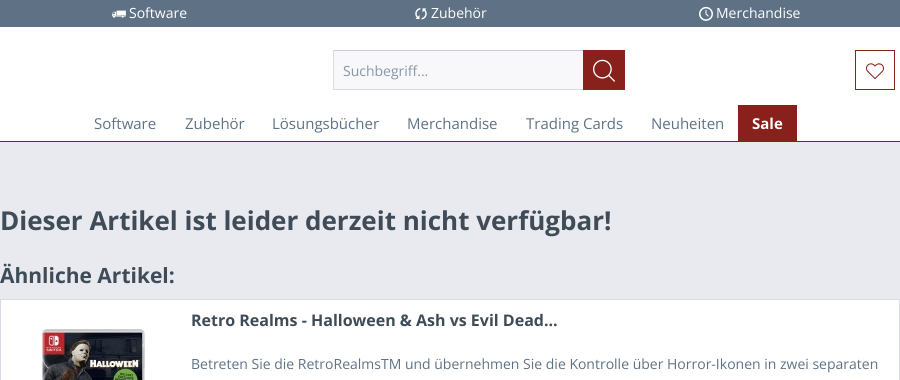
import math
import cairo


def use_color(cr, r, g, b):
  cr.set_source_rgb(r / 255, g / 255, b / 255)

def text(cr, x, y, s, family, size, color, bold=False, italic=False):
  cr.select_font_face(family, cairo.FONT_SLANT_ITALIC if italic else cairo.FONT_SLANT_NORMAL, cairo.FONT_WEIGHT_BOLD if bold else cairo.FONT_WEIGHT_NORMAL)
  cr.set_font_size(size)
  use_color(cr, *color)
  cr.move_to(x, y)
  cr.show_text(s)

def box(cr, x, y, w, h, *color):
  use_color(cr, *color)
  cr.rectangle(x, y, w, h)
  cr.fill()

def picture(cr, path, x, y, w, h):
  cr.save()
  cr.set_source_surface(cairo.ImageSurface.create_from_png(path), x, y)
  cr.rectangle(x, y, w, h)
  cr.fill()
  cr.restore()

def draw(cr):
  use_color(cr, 233, 233, 240)
  cr.paint()
  box(cr, 0, 27, 900, 114, 255, 255, 255)
  box(cr, 0, 0, 900, 27, 95, 114, 133)
  picture(cr, "img_01.png", 112, 10, 14, 8)
  picture(cr, "img_02.png", 415, 8, 12, 12)
  picture(cr, "img_03.png", 699, 6, 14, 15)
  box(cr, 334, 51, 249, 38, 248, 248, 250)
  box(cr, 333, 50, 250, 1, 203, 203, 219)
  box(cr, 333, 89, 250, 1, 218, 218, 229)
  box(cr, 333, 50, 1, 40, 218, 218, 229)
  box(cr, 583, 50, 42, 40, 136, 32, 28)
  picture(cr, "img_04.png", 593, 59, 22, 23)
  cr.rectangle(855.5, 50.5, 39, 39)
  cr.set_line_width(1)
  cr.stroke()
  picture(cr, "img_05.png", 866, 63, 18, 17)
  box(cr, 0, 141, 900, 1, 136, 32, 28)
  box(cr, 738, 105, 59, 36, 136, 32, 28)
  use_color(cr, 255, 255, 255)
  cr.rectangle(0.5, 299.5, 899, 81)
  cr.fill_preserve()
  use_color(cr, 218, 218, 229)
  cr.stroke()
  picture(cr, "img_06.png", 32, 329, 113, 51)
  text(cr, 129, 18, "Software", "Open Sans", 14, (255, 255, 255))
  text(cr, 431, 18, "Zubehör", "Open Sans", 14, (255, 255, 255))
  text(cr, 716, 18, "Merchandise", "Open Sans", 14, (255, 255, 255))
  text(cr, 343, 76, "Suchbegriff...", "Open Sans", 14, (135, 152, 169))
  text(cr, 94, 129, "Software", "Open Sans", 15, (95, 114, 133))
  text(cr, 185, 129, "Zubehör", "Open Sans", 15, (95, 114, 133))
  text(cr, 272, 129, "Lösungsbücher", "Open Sans", 15, (95, 114, 133))
  text(cr, 407, 129, "Merchandise", "Open Sans", 15, (95, 114, 133))
  text(cr, 526, 129, "Trading Cards", "Open Sans", 15, (95, 114, 133))
  text(cr, 651, 129, "Neuheiten", "Open Sans", 15, (95, 114, 133))
  text(cr, 752, 129, "Sale", "Open Sans", 15, (255, 255, 255), bold=True)
  text(cr, 0, 230, "Dieser Artikel ist leider derzeit nicht verfügbar!", "Open Sans", 26, (63, 76, 88), bold=True)
  text(cr, 0, 283, "Ähnliche Artikel:", "Open Sans", 21, (63, 76, 88), bold=True)
  text(cr, 191, 326, "Retro Realms - Halloween & Ash vs Evil Dead...", "Open Sans", 16, (63, 76, 88), bold=True)
  text(cr, 191, 369, "Betreten Sie die RetroRealmsTM und übernehmen Sie die Kontrolle über Horror-Ikonen in zwei separaten", "Open Sans", 14, (95, 114, 133))


surface = cairo.ImageSurface(cairo.FORMAT_RGB24, 900, 380)
cr = cairo.Context(surface)
options = cairo.FontOptions()
options.set_hint_metrics(cairo.HINT_METRICS_OFF)
options.set_hint_style(cairo.HINT_STYLE_NONE)
cr.set_font_options(options)
cr.set_miter_limit(4)
draw(cr)
surface.write_to_png("out.png")
